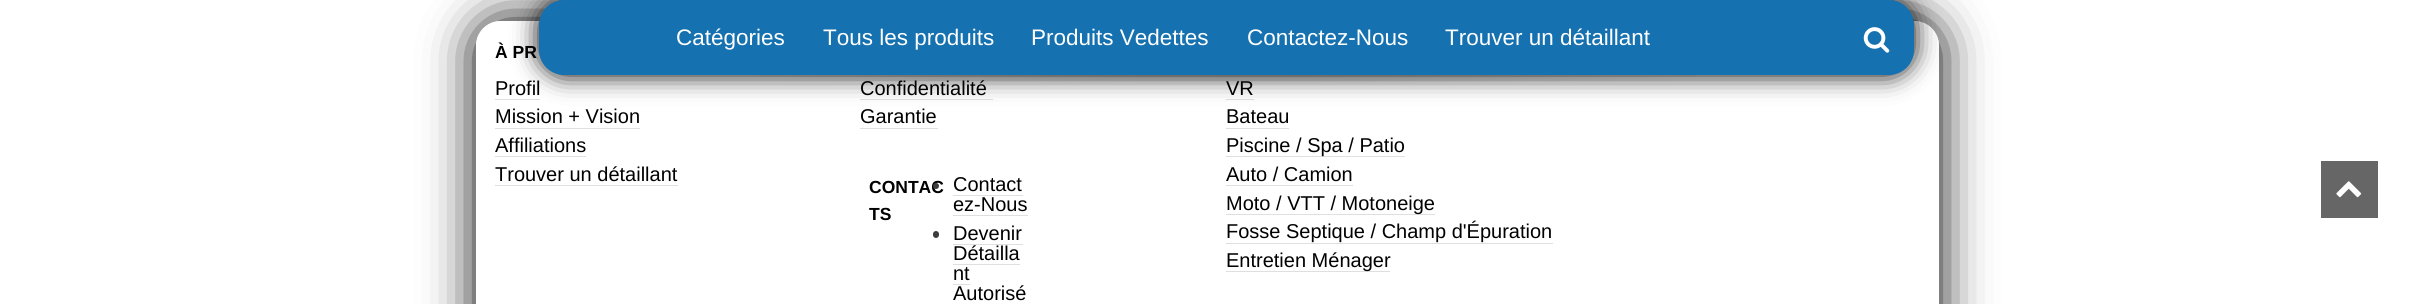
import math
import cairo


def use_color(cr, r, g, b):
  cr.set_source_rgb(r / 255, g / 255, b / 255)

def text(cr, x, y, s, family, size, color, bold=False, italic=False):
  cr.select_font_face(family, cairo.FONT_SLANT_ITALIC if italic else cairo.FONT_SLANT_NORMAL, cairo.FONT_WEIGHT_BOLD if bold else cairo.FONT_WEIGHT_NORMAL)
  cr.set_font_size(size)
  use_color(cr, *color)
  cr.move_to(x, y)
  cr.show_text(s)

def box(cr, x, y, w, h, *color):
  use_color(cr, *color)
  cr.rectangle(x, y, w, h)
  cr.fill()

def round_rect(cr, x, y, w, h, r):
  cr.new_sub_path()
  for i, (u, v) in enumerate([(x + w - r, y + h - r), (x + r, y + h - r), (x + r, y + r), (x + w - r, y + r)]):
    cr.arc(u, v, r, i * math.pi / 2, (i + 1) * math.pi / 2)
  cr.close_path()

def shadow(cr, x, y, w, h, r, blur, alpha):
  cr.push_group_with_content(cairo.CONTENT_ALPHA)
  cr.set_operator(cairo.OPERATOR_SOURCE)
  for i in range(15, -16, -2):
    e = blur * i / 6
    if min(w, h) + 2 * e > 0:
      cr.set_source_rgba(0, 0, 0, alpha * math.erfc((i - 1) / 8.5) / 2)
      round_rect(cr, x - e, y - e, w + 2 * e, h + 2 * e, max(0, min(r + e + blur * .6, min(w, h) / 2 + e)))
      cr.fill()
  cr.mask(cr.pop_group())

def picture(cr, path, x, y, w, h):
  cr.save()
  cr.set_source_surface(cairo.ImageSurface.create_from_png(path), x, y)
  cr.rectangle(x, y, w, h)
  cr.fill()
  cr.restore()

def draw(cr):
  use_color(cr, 255, 255, 255)
  cr.paint()
  cr.save()
  cr.set_fill_rule(cairo.FILL_RULE_EVEN_ODD)
  cr.new_path()
  cr.move_to(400, 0)
  cr.line_to(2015, 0)
  cr.line_to(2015, 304)
  cr.line_to(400, 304)
  cr.close_path()
  cr.move_to(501, 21)
  cr.line_to(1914, 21)
  cr.curve_to(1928, 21, 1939, 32, 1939, 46)
  cr.line_to(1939, 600)
  cr.curve_to(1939, 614, 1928, 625, 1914, 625)
  cr.line_to(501, 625)
  cr.curve_to(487, 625, 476, 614, 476, 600)
  cr.line_to(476, 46)
  cr.curve_to(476, 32, 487, 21, 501, 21)
  cr.close_path()
  cr.clip()
  use_color(cr, 0, 0, 0)
  shadow(cr, 476, 21, 1463, 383, 25, 25, 1)
  cr.restore()
  cr.set_source_rgba(1, 1, 1, 0.4)
  round_rect(cr, 476, 21, 1463, 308, 25)
  cr.fill()
  box(cr, 495, 99, 45, 1, 223, 223, 223)
  box(cr, 495, 128, 145, 1, 223, 223, 223)
  box(cr, 495, 156, 91, 1, 223, 223, 223)
  box(cr, 495, 185, 183, 1, 223, 223, 223)
  box(cr, 860, 99, 133, 1, 223, 223, 223)
  box(cr, 860, 128, 78, 1, 223, 223, 223)
  box(cr, 953, 195, 70, 1, 223, 223, 223)
  box(cr, 953, 215, 75, 1, 223, 223, 223)
  use_color(cr, 60, 60, 60)
  round_rect(cr, 933, 231, 6, 7, 3)
  cr.fill()
  box(cr, 953, 244, 70, 1, 223, 223, 223)
  box(cr, 953, 264, 67, 1, 223, 223, 223)
  box(cr, 953, 284, 17, 1, 223, 223, 223)
  box(cr, 1226, 99, 28, 1, 223, 223, 223)
  box(cr, 1226, 128, 63, 1, 223, 223, 223)
  box(cr, 1226, 156, 179, 1, 223, 223, 223)
  box(cr, 1226, 185, 127, 1, 223, 223, 223)
  box(cr, 1226, 214, 209, 1, 223, 223, 223)
  box(cr, 1226, 243, 327, 1, 223, 223, 223)
  box(cr, 1226, 271, 164, 1, 223, 223, 223)
  box(cr, 2321, 161, 57, 57, 102, 102, 102)
  picture(cr, "img_03.png", 2336, 181, 26, 17)
  text(cr, 495, 58, "À PR", "Liberation Sans", 17.5, (0, 0, 0), bold=True)
  text(cr, 495, 95, "Profil", "Liberation Sans", 20, (0, 0, 0))
  text(cr, 495, 123, "Mission + Vision", "Liberation Sans", 20, (0, 0, 0))
  text(cr, 495, 152, "Affiliations", "Liberation Sans", 20, (0, 0, 0))
  text(cr, 495, 181, "Trouver un détaillant", "Liberation Sans", 20, (0, 0, 0))
  text(cr, 860, 95, "Confidentialité", "Liberation Sans", 20, (0, 0, 0))
  text(cr, 860, 123, "Garantie", "Liberation Sans", 20, (0, 0, 0))
  text(cr, 869, 193, "CONTAC", "Liberation Sans", 17.5, (0, 0, 0), bold=True)
  text(cr, 869, 220, "TS", "Liberation Sans", 17.5, (0, 0, 0), bold=True)
  use_color(cr, 60, 60, 60)
  cr.new_path()
  cr.arc(936, 186, 3, 0, 2 * math.pi)
  cr.fill()
  text(cr, 953, 191, "Contact", "Liberation Sans", 20, (0, 0, 0))
  text(cr, 953, 211, "ez-Nous", "Liberation Sans", 20, (0, 0, 0))
  text(cr, 953, 240, "Devenir", "Liberation Sans", 20, (0, 0, 0))
  text(cr, 953, 260, "Détailla", "Liberation Sans", 20, (0, 0, 0))
  text(cr, 953, 280, "nt", "Liberation Sans", 20, (0, 0, 0))
  text(cr, 953, 300, "Autorisé", "Liberation Sans", 20, (0, 0, 0))
  text(cr, 1226, 95, "VR", "Liberation Sans", 20, (0, 0, 0))
  picture(cr, "img_01.png", 759, 75, 937, 9)
  use_color(cr, 0, 0, 0)
  shadow(cr, 539, 0, 1375, 75, 25, 12.5, 1)
  use_color(cr, 21, 113, 176)
  round_rect(cr, 539, 0, 1375, 75, 25)
  cr.fill()
  text(cr, 1445, 45, "Trouver un détaillant", "Liberation Sans", 22.5, (255, 255, 255))
  text(cr, 1247, 45, "Contactez-Nous", "Liberation Sans", 22.5, (255, 255, 255))
  text(cr, 1031, 45, "Produits Vedettes", "Liberation Sans", 22.5, (255, 255, 255))
  text(cr, 823, 45, "Tous les produits", "Liberation Sans", 22.5, (255, 255, 255))
  text(cr, 676, 45, "Catégories", "Liberation Sans", 22.5, (255, 255, 255))
  picture(cr, "img_02.png", 1863, 27, 27, 26)
  text(cr, 1226, 123, "Bateau", "Liberation Sans", 20, (0, 0, 0))
  text(cr, 1226, 152, "Piscine / Spa / Patio", "Liberation Sans", 20, (0, 0, 0))
  text(cr, 1226, 181, "Auto / Camion", "Liberation Sans", 20, (0, 0, 0))
  text(cr, 1226, 210, "Moto / VTT / Motoneige", "Liberation Sans", 20, (0, 0, 0))
  text(cr, 1226, 238, "Fosse Septique / Champ d'Épuration", "Liberation Sans", 20, (0, 0, 0))
  text(cr, 1226, 267, "Entretien Ménager", "Liberation Sans", 20, (0, 0, 0))


surface = cairo.ImageSurface(cairo.FORMAT_RGB24, 2414, 304)
cr = cairo.Context(surface)
options = cairo.FontOptions()
options.set_hint_metrics(cairo.HINT_METRICS_OFF)
options.set_hint_style(cairo.HINT_STYLE_NONE)
cr.set_font_options(options)
cr.set_miter_limit(4)
draw(cr)
surface.write_to_png("out.png")
